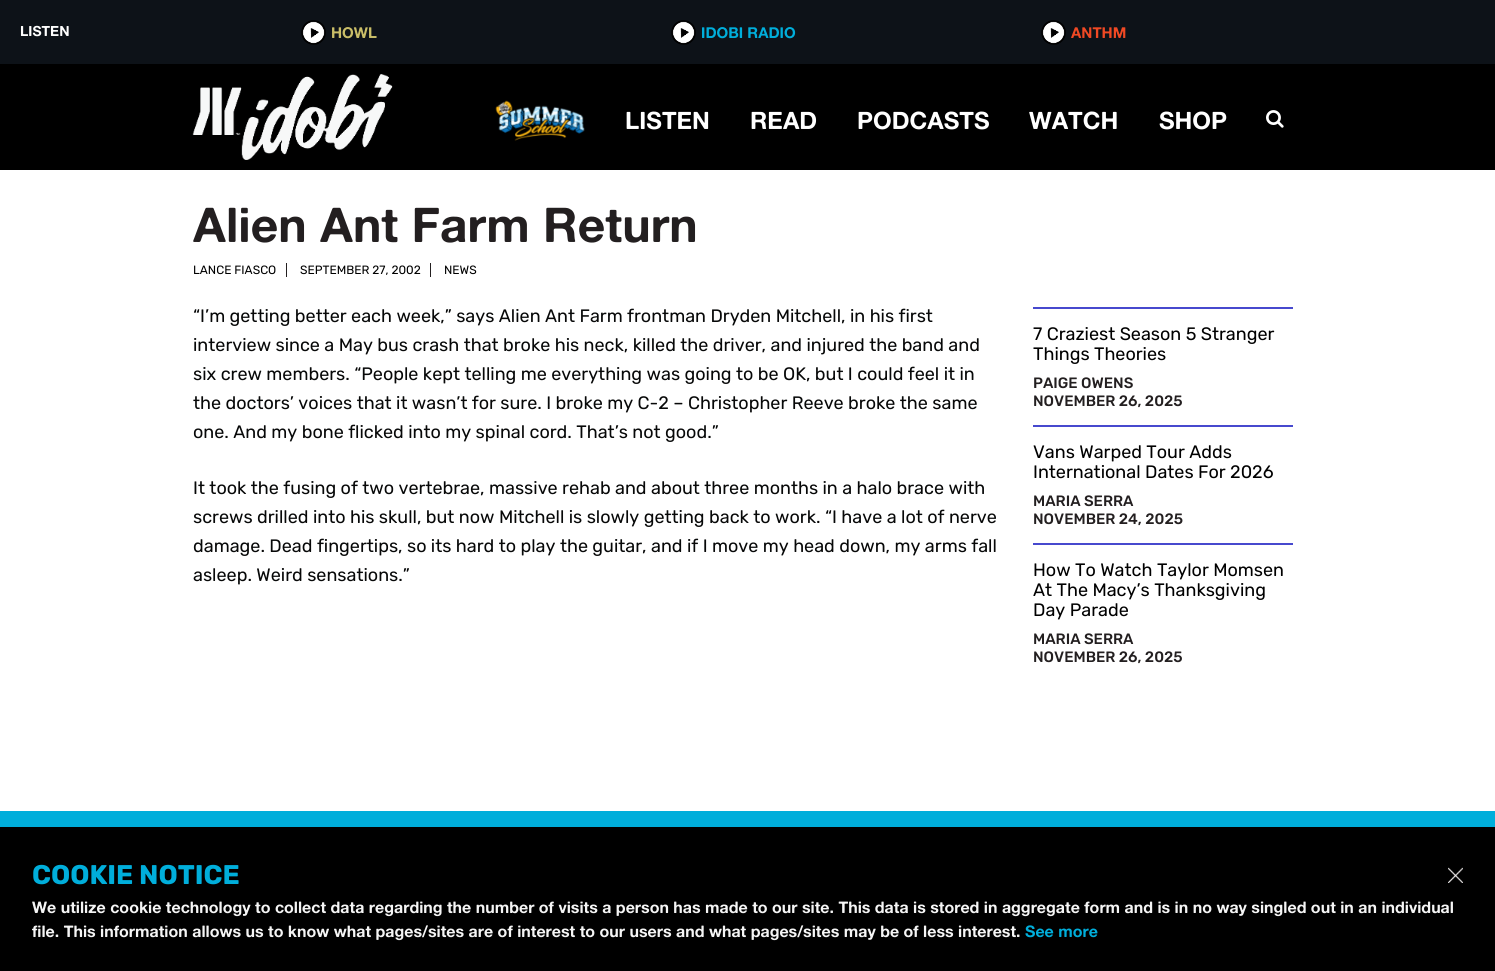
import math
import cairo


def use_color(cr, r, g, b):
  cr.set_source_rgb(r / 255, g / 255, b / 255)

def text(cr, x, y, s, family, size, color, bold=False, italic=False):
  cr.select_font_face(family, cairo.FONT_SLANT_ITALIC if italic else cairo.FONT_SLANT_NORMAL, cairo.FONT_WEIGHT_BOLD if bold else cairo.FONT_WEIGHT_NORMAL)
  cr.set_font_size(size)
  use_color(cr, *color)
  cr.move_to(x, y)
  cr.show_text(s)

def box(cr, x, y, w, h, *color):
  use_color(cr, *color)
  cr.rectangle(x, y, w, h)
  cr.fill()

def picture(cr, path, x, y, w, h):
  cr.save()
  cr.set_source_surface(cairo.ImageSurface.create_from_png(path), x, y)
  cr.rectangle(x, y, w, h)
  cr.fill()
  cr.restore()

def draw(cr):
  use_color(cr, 255, 255, 255)
  cr.paint()
  box(cr, 0, 64, 1495, 106, 0, 0, 0)
  box(cr, 0, 0, 1495, 64, 13, 18, 24)
  picture(cr, "img_01.png", 301, 20, 25, 25)
  picture(cr, "img_02.png", 671, 20, 25, 25)
  picture(cr, "img_02.png", 1041, 20, 25, 25)
  picture(cr, "img_03.png", 192, 74, 201, 86)
  picture(cr, "img_04.png", 495, 100, 90, 41)
  picture(cr, "img_05.png", 1266, 110, 18, 18)
  box(cr, 286, 263, 1, 14, 35, 31, 32)
  box(cr, 430, 263, 1, 14, 35, 31, 32)
  box(cr, 1033, 307, 260, 2, 71, 73, 206)
  box(cr, 1033, 425, 260, 2, 71, 73, 206)
  box(cr, 1033, 543, 260, 2, 71, 73, 206)
  box(cr, 0, 827, 1495, 144, 0, 0, 0)
  box(cr, 0, 811, 1495, 16, 0, 174, 219)
  picture(cr, "img_06.png", 1448, 867, 15, 16)
  text(cr, 20, 36, "LISTEN", "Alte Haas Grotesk", 14, (255, 255, 255), bold=True)
  text(cr, 331, 38, "HOWL", "Alte Haas Grotesk", 15, (202, 190, 104), bold=True)
  text(cr, 701, 38, "IDOBI RADIO", "Alte Haas Grotesk", 15, (0, 174, 219), bold=True)
  text(cr, 1071, 38, "ANTHM", "Alte Haas Grotesk", 15, (240, 73, 36), bold=True)
  text(cr, 625, 129, "LISTEN", "Alte Haas Grotesk", 24, (255, 255, 255), bold=True)
  text(cr, 750, 129, "READ", "Alte Haas Grotesk", 24, (255, 255, 255), bold=True)
  text(cr, 857, 129, "PODCASTS", "Alte Haas Grotesk", 24, (255, 255, 255), bold=True)
  text(cr, 1029, 129, "WATCH", "Alte Haas Grotesk", 24, (255, 255, 255), bold=True)
  text(cr, 1159, 129, "SHOP", "Alte Haas Grotesk", 24, (255, 255, 255), bold=True)
  text(cr, 193, 242, "Alien Ant Farm Return", "Alte Haas Grotesk", 48, (35, 31, 32), bold=True)
  text(cr, 193, 274, "LANCE FIASCO", "Rubik", 12, (0, 0, 0))
  text(cr, 300, 274, "SEPTEMBER 27, 2002", "Rubik", 12, (0, 0, 0))
  text(cr, 444, 274, "NEWS", "Rubik", 12, (0, 0, 0))
  text(cr, 193, 322, "“I’m getting better each week,” says Alien Ant Farm frontman Dryden Mitchell, in his first", "Rubik", 18, (7, 8, 8))
  text(cr, 193, 351, "interview since a May bus crash that broke his neck, killed the driver, and injured the band and", "Rubik", 18, (7, 8, 8))
  text(cr, 193, 380, "six crew members. “People kept telling me everything was going to be OK, but I could feel it in", "Rubik", 18, (7, 8, 8))
  text(cr, 193, 409, "the doctors’ voices that it wasn’t for sure. I broke my C-2 – Christopher Reeve broke the same", "Rubik", 18, (7, 8, 8))
  text(cr, 193, 438, "one. And my bone flicked into my spinal cord. That’s not good.”", "Rubik", 18, (7, 8, 8))
  text(cr, 193, 494, "It took the fusing of two vertebrae, massive rehab and about three months in a halo brace with", "Rubik", 18, (7, 8, 8))
  text(cr, 193, 523, "screws drilled into his skull, but now Mitchell is slowly getting back to work. “I have a lot of nerve", "Rubik", 18, (7, 8, 8))
  text(cr, 193, 552, "damage. Dead fingertips, so its hard to play the guitar, and if I move my head down, my arms fall", "Rubik", 18, (7, 8, 8))
  text(cr, 193, 581, "asleep. Weird sensations.”", "Rubik", 18, (7, 8, 8))
  text(cr, 1033, 340, "7 Craziest Season 5 Stranger", "Rubik", 18, (0, 0, 0))
  text(cr, 1033, 360, "Things Theories", "Rubik", 18, (0, 0, 0))
  text(cr, 1033, 388, "PAIGE OWENS", "Rubik Medium", 15, (35, 31, 32))
  text(cr, 1033, 406, "NOVEMBER 26, 2025", "Rubik Medium", 15, (35, 31, 32))
  text(cr, 1033, 458, "Vans Warped Tour Adds", "Rubik", 18, (0, 0, 0))
  text(cr, 1033, 478, "International Dates For 2026", "Rubik", 18, (0, 0, 0))
  text(cr, 1033, 506, "MARIA SERRA", "Rubik Medium", 15, (35, 31, 32))
  text(cr, 1033, 524, "NOVEMBER 24, 2025", "Rubik Medium", 15, (35, 31, 32))
  text(cr, 1033, 576, "How To Watch Taylor Momsen", "Rubik", 18, (0, 0, 0))
  text(cr, 1033, 596, "At The Macy’s Thanksgiving", "Rubik", 18, (0, 0, 0))
  text(cr, 1033, 616, "Day Parade", "Rubik", 18, (0, 0, 0))
  text(cr, 1033, 644, "MARIA SERRA", "Rubik Medium", 15, (35, 31, 32))
  text(cr, 1033, 662, "NOVEMBER 26, 2025", "Rubik Medium", 15, (35, 31, 32))
  text(cr, 32, 884, "COOKIE NOTICE", "Rubik", 27, (0, 174, 219), bold=True)
  text(cr, 32, 913, "We utilize cookie technology to collect data regarding the number of visits a person has made to our site. This data is stored in aggregate form and is in no way singled out in an individual", "Alte Haas Grotesk", 16, (245, 245, 245), bold=True)
  text(cr, 32, 937, "file. This information allows us to know what pages/sites are of interest to our users and what pages/sites may be of less interest.", "Alte Haas Grotesk", 16, (245, 245, 245), bold=True)
  text(cr, 1025, 937, "See more", "Alte Haas Grotesk", 16, (0, 174, 219), bold=True)


surface = cairo.ImageSurface(cairo.FORMAT_RGB24, 1495, 971)
cr = cairo.Context(surface)
options = cairo.FontOptions()
options.set_hint_metrics(cairo.HINT_METRICS_OFF)
options.set_hint_style(cairo.HINT_STYLE_NONE)
cr.set_font_options(options)
cr.set_miter_limit(4)
draw(cr)
surface.write_to_png("out.png")
